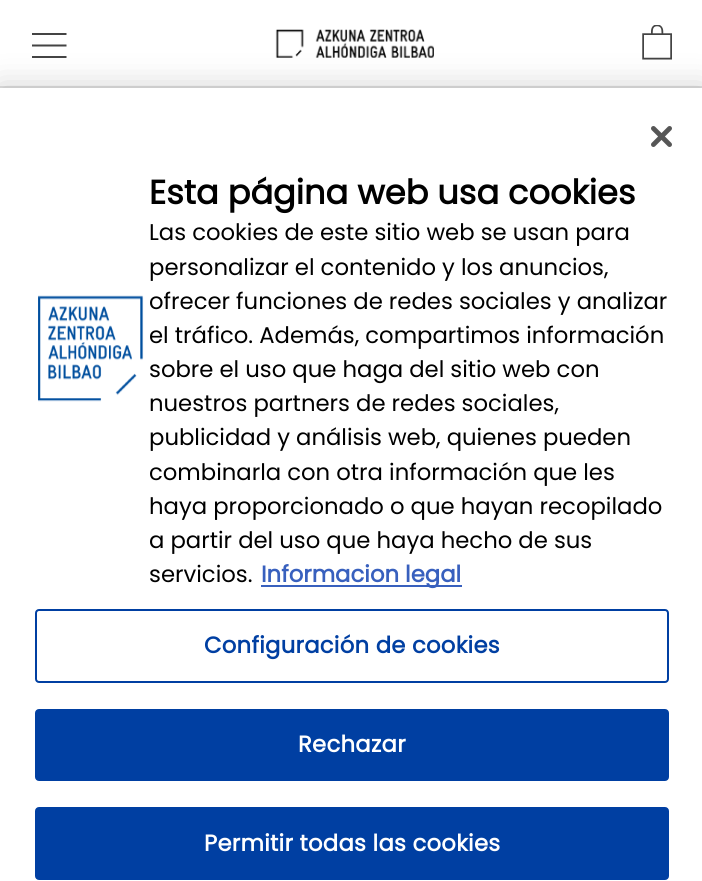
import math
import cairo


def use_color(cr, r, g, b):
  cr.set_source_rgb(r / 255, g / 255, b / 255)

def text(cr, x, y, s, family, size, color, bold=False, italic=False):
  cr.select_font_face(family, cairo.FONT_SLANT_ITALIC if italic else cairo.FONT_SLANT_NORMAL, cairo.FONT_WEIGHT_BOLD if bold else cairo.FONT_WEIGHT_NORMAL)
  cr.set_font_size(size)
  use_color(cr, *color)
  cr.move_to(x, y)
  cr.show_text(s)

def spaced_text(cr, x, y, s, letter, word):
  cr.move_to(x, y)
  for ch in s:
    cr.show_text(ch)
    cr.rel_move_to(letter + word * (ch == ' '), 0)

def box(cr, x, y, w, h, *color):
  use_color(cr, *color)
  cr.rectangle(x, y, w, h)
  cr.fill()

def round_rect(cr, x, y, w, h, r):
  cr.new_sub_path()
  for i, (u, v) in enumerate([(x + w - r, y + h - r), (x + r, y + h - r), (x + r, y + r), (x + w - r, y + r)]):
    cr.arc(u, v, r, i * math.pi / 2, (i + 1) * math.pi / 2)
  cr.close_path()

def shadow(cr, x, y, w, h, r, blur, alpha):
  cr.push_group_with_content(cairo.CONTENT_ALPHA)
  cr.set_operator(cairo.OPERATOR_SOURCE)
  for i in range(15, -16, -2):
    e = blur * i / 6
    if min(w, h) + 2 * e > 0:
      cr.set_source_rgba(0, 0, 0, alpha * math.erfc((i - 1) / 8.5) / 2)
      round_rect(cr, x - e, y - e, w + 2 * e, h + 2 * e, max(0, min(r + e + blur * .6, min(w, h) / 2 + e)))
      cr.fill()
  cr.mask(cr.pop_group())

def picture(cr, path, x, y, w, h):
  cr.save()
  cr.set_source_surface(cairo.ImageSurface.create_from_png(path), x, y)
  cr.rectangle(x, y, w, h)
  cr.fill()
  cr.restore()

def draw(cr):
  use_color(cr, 255, 255, 255)
  cr.paint()
  box(cr, 0, 86, 702, 2, 227, 227, 227)
  cr.save()
  cr.rectangle(32, 33, 35, 25)
  cr.clip()
  use_color(cr, 68, 68, 68)
  cr.new_path()
  cr.move_to(31.5, 58)
  cr.line_to(31.5, 56)
  cr.line_to(66.5, 56)
  cr.line_to(66.5, 58)
  cr.close_path()
  cr.move_to(31.5, 44.5)
  cr.line_to(66.5, 44.5)
  cr.line_to(66.5, 46.5)
  cr.line_to(31.5, 46.5)
  cr.close_path()
  cr.move_to(31.5, 33)
  cr.line_to(66.5, 33)
  cr.line_to(66.5, 35)
  cr.line_to(31.5, 35)
  cr.close_path()
  cr.fill()
  cr.restore()
  picture(cr, "img_01.png", 275, 29, 159, 29)
  picture(cr, "img_02.png", 642, 25, 30, 35)
  use_color(cr, 0, 0, 0)
  shadow(cr, 0, 88, 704, 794, 0, 16, 0.2)
  box(cr, 0, 88, 702, 793, 255, 255, 255)
  picture(cr, "img_03.png", 651, 126, 21, 21)
  picture(cr, "img_04.png", 38, 295, 106, 107)
  box(cr, 261, 585, 201, 2, 56, 96, 190)
  round_rect(cr, 36, 610, 632, 72, 3)
  use_color(cr, 0, 63, 162)
  cr.stroke()
  round_rect(cr, 36, 710, 632, 70, 3)
  cr.fill_preserve()
  cr.stroke()
  round_rect(cr, 36, 808, 632, 71, 3)
  cr.fill_preserve()
  cr.stroke()
  text(cr, 149, 204, "Esta página web usa cookies", "Poppins", 33.6, (0, 0, 0), bold=True)
  text(cr, 149, 240, "Las cookies de este sitio web se usan para", "Poppins", 22.75, (0, 0, 0))
  text(cr, 149, 275, "personalizar el contenido y los anuncios,", "Poppins", 22.75, (0, 0, 0))
  text(cr, 149, 309, "ofrecer funciones de redes sociales y analizar", "Poppins", 22.75, (0, 0, 0))
  text(cr, 149, 343, "el tráfico. Además, compartimos información", "Poppins", 22.75, (0, 0, 0))
  text(cr, 149, 377, "sobre el uso que haga del sitio web con", "Poppins", 22.75, (0, 0, 0))
  text(cr, 149, 411, "nuestros partners de redes sociales,", "Poppins", 22.75, (0, 0, 0))
  text(cr, 149, 445, "publicidad y análisis web, quienes pueden", "Poppins", 22.75, (0, 0, 0))
  text(cr, 149, 480, "combinarla con otra información que les", "Poppins", 22.75, (0, 0, 0))
  text(cr, 149, 514, "haya proporcionado o que hayan recopilado", "Poppins", 22.75, (0, 0, 0))
  text(cr, 149, 548, "a partir del uso que haya hecho de sus", "Poppins", 22.75, (0, 0, 0))
  text(cr, 149, 582, "servicios.", "Poppins", 22.75, (0, 0, 0))
  text(cr, 261, 582, "Informacion legal", "Poppins", 22.75, (56, 96, 190), bold=True)
  use_color(cr, 0, 63, 162)
  spaced_text(cr, 204, 653, "Configuración de cookies", 0.25, 0)
  use_color(cr, 255, 255, 255)
  spaced_text(cr, 298, 752, "Rechazar", 0.25, 0)
  spaced_text(cr, 204, 851, "Permitir todas las cookies", 0.25, 0)


surface = cairo.ImageSurface(cairo.FORMAT_RGB24, 702, 881)
cr = cairo.Context(surface)
options = cairo.FontOptions()
options.set_hint_metrics(cairo.HINT_METRICS_OFF)
options.set_hint_style(cairo.HINT_STYLE_NONE)
cr.set_font_options(options)
cr.set_miter_limit(4)
draw(cr)
surface.write_to_png("out.png")
